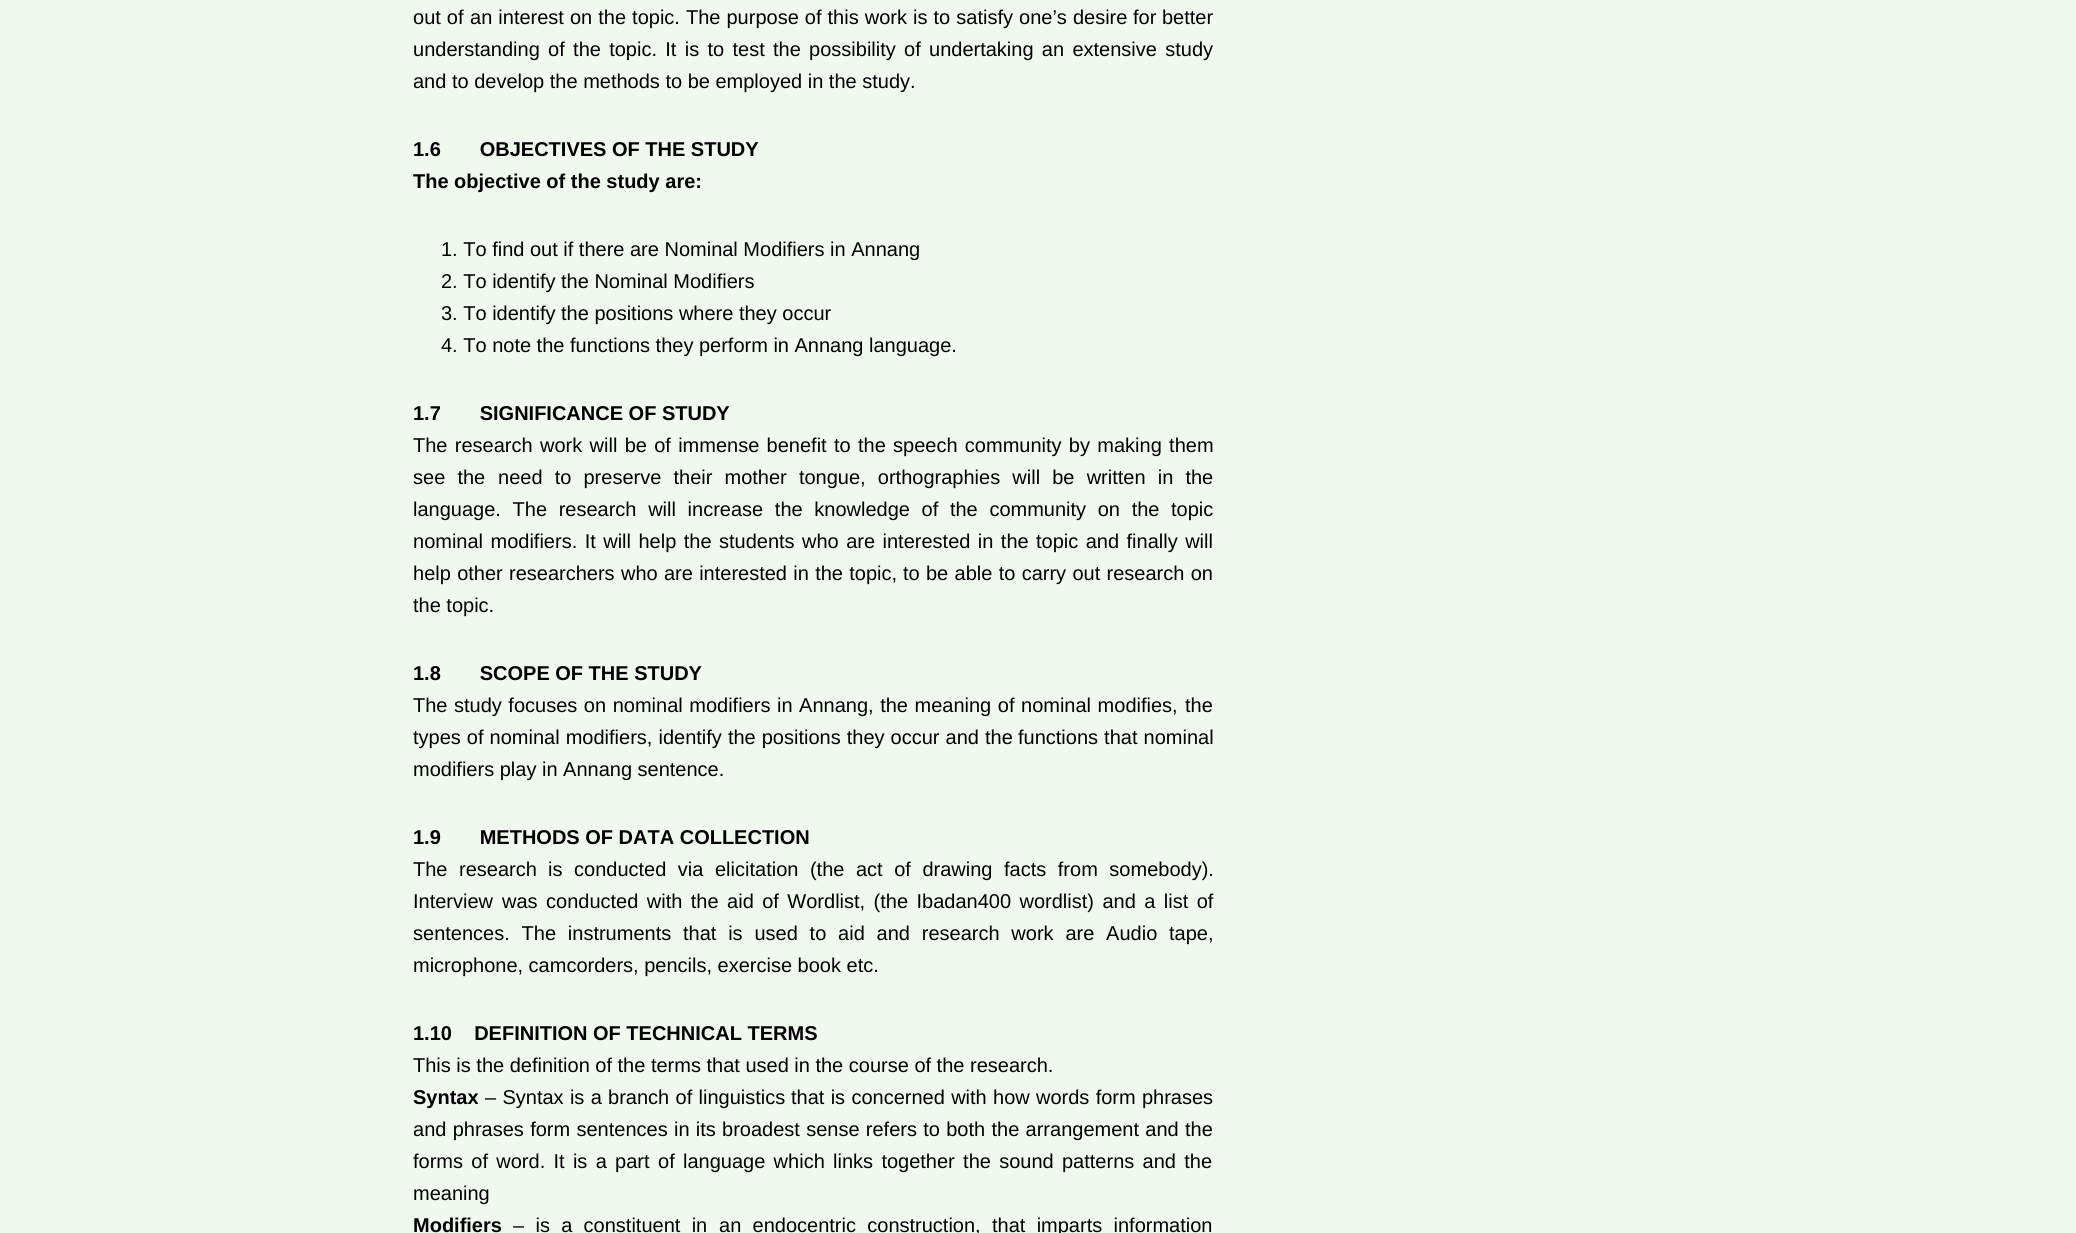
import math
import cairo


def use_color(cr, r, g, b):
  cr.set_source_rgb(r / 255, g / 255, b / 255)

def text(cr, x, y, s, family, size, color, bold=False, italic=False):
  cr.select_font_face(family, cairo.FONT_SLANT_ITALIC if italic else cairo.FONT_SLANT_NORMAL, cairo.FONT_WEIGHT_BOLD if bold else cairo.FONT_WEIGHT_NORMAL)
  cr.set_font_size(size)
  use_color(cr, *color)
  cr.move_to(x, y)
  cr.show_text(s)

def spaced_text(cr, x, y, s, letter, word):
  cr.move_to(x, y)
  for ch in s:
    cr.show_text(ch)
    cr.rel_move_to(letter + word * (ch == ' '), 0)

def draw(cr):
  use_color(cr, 239, 249, 238)
  cr.paint()
  cr.select_font_face("Liberation Sans")
  cr.set_font_size(20)
  use_color(cr, 0, 0, 0)
  spaced_text(cr, 413, 24, "out of", 0, 0.5)
  spaced_text(cr, 470, 24, "an interest on the topic. The purpose of this work is to satisfy one’s desire", 0, 0.5)
  text(cr, 1133, 24, "for better", "Liberation Sans", 20, (0, 0, 0))
  spaced_text(cr, 413, 56, "understanding of the topic. It is to test the possibility of", 0, 2.75)
  spaced_text(cr, 929, 56, "undertaking an extensive study", 0, 2.75)
  text(cr, 413, 88, "and to develop the methods to be employed in the study.", "Liberation Sans", 20, (0, 0, 0))
  text(cr, 413, 156, "1.6       OBJECTIVES OF THE STUDY", "Liberation Sans", 20, (0, 0, 0), bold=True)
  text(cr, 413, 188, "The objective of the study are:", "Liberation Sans", 20, (0, 0, 0), bold=True)
  text(cr, 441, 256, "1. To find out if there are Nominal Modifiers in Annang", "Liberation Sans", 20, (0, 0, 0))
  text(cr, 441, 288, "2. To identify the Nominal Modifiers", "Liberation Sans", 20, (0, 0, 0))
  text(cr, 441, 320, "3. To identify the positions where they occur", "Liberation Sans", 20, (0, 0, 0))
  text(cr, 441, 352, "4. To note the functions they perform in Annang language.", "Liberation Sans", 20, (0, 0, 0))
  text(cr, 413, 420, "1.7       SIGNIFICANCE OF STUDY", "Liberation Sans", 20, (0, 0, 0), bold=True)
  cr.select_font_face("Liberation Sans")
  spaced_text(cr, 413, 452, "The research", 0, 1.75)
  spaced_text(cr, 540, 452, "work will be of immense benefit to the speech community by making them", 0, 1.75)
  spaced_text(cr, 413, 484, "see the", 0, 6.6)
  spaced_text(cr, 498, 484, "need to preserve their mother tongue, orthographies will be written in the", 0, 6.6)
  spaced_text(cr, 413, 516, "language. The research will increase the knowledge of the community on the", 0, 6.1)
  text(cr, 1171, 516, "topic", "Liberation Sans", 20, (0, 0, 0))
  spaced_text(cr, 413, 548, "nominal modifiers. It will help the students who are interested in the", 0, 1.9)
  spaced_text(cr, 1036, 548, "topic and finally will", 0, 1.9)
  spaced_text(cr, 413, 580, "help other researchers who are interested in the topic,", 0, 0.75)
  spaced_text(cr, 903, 580, "to be able to carry out research on", 0, 0.75)
  text(cr, 413, 612, "the topic.", "Liberation Sans", 20, (0, 0, 0))
  text(cr, 413, 680, "1.8       SCOPE OF THE STUDY", "Liberation Sans", 20, (0, 0, 0), bold=True)
  text(cr, 413, 712, "The", "Liberation Sans", 20, (0, 0, 0))
  spaced_text(cr, 454, 712, "study focuses on nominal modifiers in Annang, the meaning of nominal modifies,", 0, 1)
  text(cr, 1185, 712, "the", "Liberation Sans", 20, (0, 0, 0))
  spaced_text(cr, 413, 744, "types of nominal modifiers, identify the positions they occur and the", 0, 0.5)
  spaced_text(cr, 1018, 744, "functions that nominal", 0, 0.5)
  text(cr, 413, 776, "modifiers play in Annang sentence.", "Liberation Sans", 20, (0, 0, 0))
  text(cr, 413, 844, "1.9       METHODS OF DATA COLLECTION", "Liberation Sans", 20, (0, 0, 0), bold=True)
  cr.select_font_face("Liberation Sans")
  spaced_text(cr, 413, 876, "The research", 0, 6)
  spaced_text(cr, 548, 876, "is conducted via elicitation (the act of drawing facts from somebody).", 0, 6)
  text(cr, 413, 908, "Interview", "Liberation Sans", 20, (0, 0, 0))
  spaced_text(cr, 502, 908, "was conducted with the aid of Wordlist, (the Ibadan400 wordlist) and a list of", 0, 2.9)
  spaced_text(cr, 413, 940, "sentences. The instruments that is used to aid and research work are Audio", 0, 6.25)
  text(cr, 1169, 940, "tape,", "Liberation Sans", 20, (0, 0, 0))
  text(cr, 413, 972, "microphone, camcorders, pencils, exercise book etc.", "Liberation Sans", 20, (0, 0, 0))
  text(cr, 413, 1040, "1.10    DEFINITION OF TECHNICAL TERMS", "Liberation Sans", 20, (0, 0, 0), bold=True)
  text(cr, 413, 1072, "This is the definition of the terms that used in the course of the research.", "Liberation Sans", 20, (0, 0, 0))
  text(cr, 413, 1104, "Syntax", "Liberation Sans", 20, (0, 0, 0), bold=True)
  cr.select_font_face("Liberation Sans")
  spaced_text(cr, 485, 1104, "– Syntax is a branch of linguistics", 0, 0.75)
  spaced_text(cr, 791, 1104, "that is concerned with how words form phrases", 0, 0.75)
  spaced_text(cr, 413, 1136, "and phrases form sentences in its", 0, 0.75)
  spaced_text(cr, 722, 1136, "broadest sense refers to both the arrangement and the", 0, 0.75)
  spaced_text(cr, 413, 1168, "forms of word. It is a part", 0, 2.75)
  spaced_text(cr, 658, 1168, "of language which links together the sound patterns and the", 0, 2.75)
  text(cr, 413, 1200, "meaning", "Liberation Sans", 20, (0, 0, 0))
  text(cr, 413, 1232, "Modifiers", "Liberation Sans", 20, (0, 0, 0), bold=True)
  cr.select_font_face("Liberation Sans")
  spaced_text(cr, 513, 1232, "– is a constituent in", 0, 5.75)
  spaced_text(cr, 719, 1232, "an endocentric construction, that imparts information", 0, 5.75)


surface = cairo.ImageSurface(cairo.FORMAT_RGB24, 2076, 1233)
cr = cairo.Context(surface)
options = cairo.FontOptions()
options.set_hint_metrics(cairo.HINT_METRICS_OFF)
options.set_hint_style(cairo.HINT_STYLE_NONE)
cr.set_font_options(options)
cr.set_miter_limit(4)
draw(cr)
surface.write_to_png("out.png")
